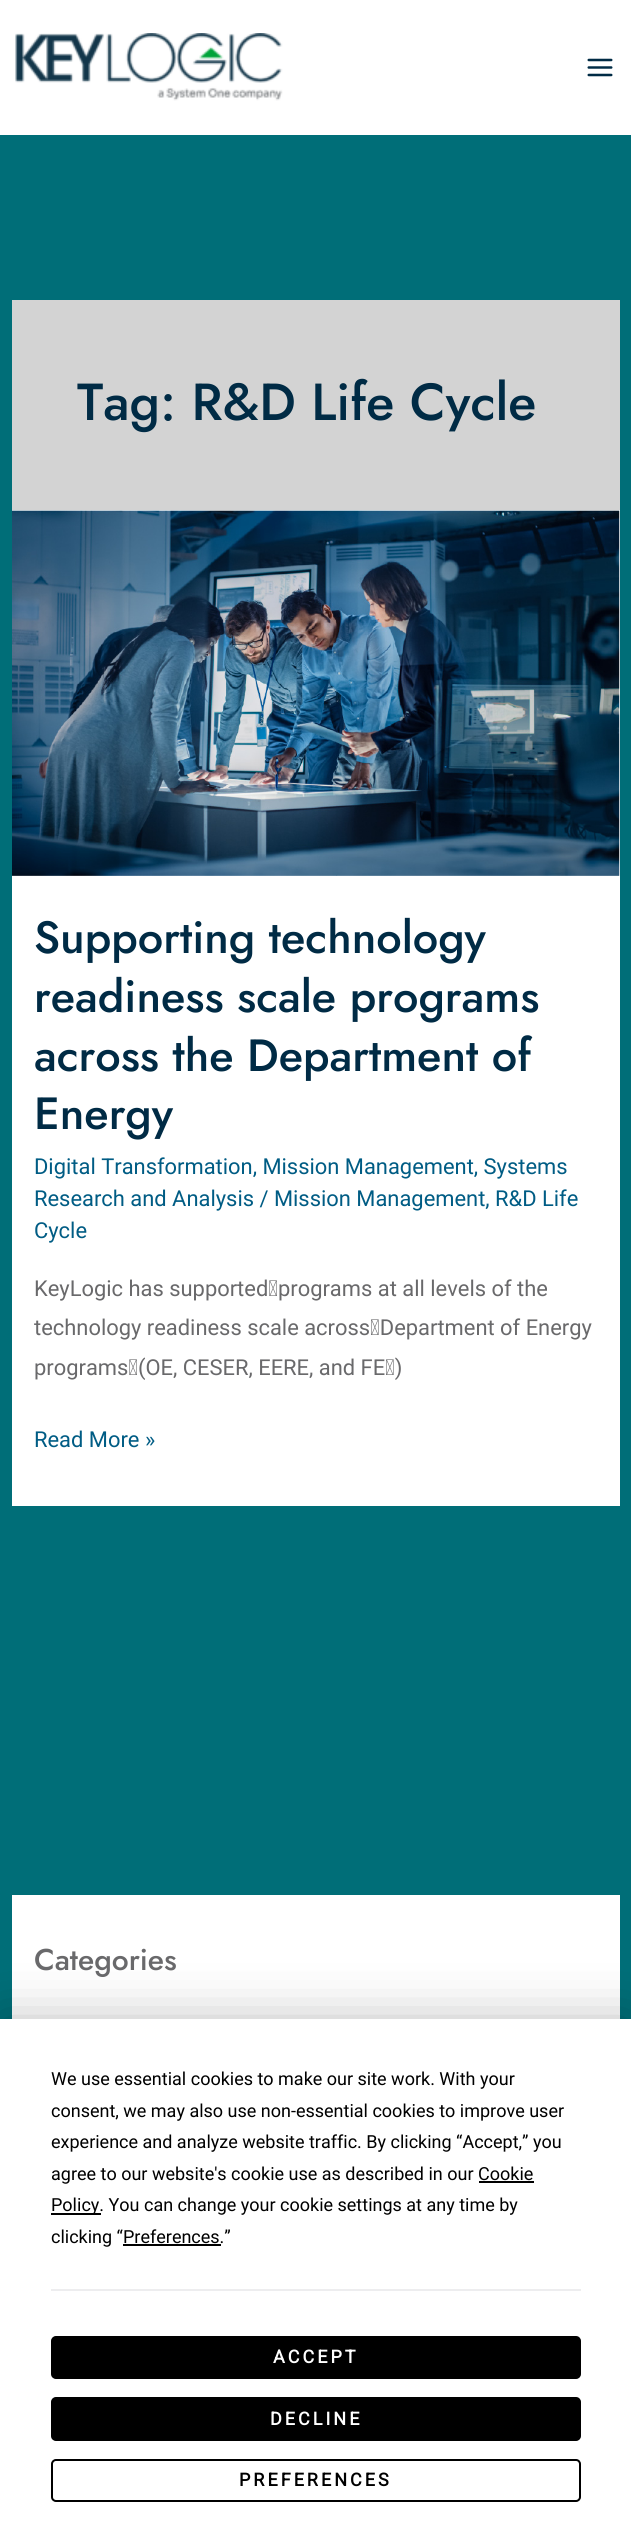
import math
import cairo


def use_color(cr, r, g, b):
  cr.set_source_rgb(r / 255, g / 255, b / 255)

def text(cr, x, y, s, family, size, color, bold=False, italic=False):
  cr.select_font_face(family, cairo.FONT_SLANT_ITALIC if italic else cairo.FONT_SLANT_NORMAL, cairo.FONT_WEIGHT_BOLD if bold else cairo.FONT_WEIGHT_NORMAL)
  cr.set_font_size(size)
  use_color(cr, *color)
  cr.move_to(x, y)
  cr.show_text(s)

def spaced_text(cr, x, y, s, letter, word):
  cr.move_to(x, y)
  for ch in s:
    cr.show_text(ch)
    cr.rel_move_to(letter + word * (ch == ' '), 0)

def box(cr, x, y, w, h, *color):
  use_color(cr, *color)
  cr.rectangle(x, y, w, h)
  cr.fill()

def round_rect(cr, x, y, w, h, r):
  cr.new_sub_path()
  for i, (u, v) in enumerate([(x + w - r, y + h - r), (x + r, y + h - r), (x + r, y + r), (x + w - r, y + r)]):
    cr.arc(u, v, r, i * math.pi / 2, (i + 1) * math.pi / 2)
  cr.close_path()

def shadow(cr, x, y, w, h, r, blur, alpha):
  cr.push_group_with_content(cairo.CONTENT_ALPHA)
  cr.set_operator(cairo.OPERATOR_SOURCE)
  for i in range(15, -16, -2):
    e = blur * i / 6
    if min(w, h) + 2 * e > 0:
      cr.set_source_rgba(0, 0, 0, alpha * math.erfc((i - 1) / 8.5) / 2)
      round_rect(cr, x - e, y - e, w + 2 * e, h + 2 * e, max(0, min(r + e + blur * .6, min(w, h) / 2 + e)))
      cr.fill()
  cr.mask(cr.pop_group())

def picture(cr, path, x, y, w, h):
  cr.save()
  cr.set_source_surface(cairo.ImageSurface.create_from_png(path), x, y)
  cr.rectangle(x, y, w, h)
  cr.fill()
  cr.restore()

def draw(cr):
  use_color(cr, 0, 110, 120)
  cr.paint()
  box(cr, 0, 0, 631, 135, 255, 255, 255)
  picture(cr, "img_01.png", 15, 33, 268, 68)
  picture(cr, "img_02.png", 587, 58, 26, 19)
  box(cr, 12, 300, 608, 210, 211, 211, 211)
  box(cr, 12, 510, 608, 996, 255, 255, 255)
  picture(cr, "img_03.png", 12, 510, 608, 366)
  box(cr, 12, 1895, 608, 124, 255, 255, 255)
  use_color(cr, 0, 0, 0)
  shadow(cr, 0, 2019, 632, 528, 0, 26, 0.25)
  box(cr, 0, 2019, 631, 527, 255, 255, 255)
  box(cr, 479, 2181, 55, 2, 0, 0, 0)
  box(cr, 51, 2213, 50, 2, 0, 0, 0)
  box(cr, 123, 2244, 98, 2, 0, 0, 0)
  box(cr, 51, 2289, 530, 2, 237, 237, 239)
  use_color(cr, 0, 0, 0)
  round_rect(cr, 52, 2337, 528, 41, 4)
  cr.fill_preserve()
  cr.stroke()
  round_rect(cr, 52, 2398, 528, 42, 4)
  cr.fill_preserve()
  cr.stroke()
  round_rect(cr, 52, 2460, 528, 41, 4)
  cr.stroke()
  text(cr, 77, 420, "Tag: R&D Life Cycle", "Jost Medium", 52, (0, 43, 69))
  text(cr, 34, 953, "Supporting technology", "Jost Medium", 45.1, (0, 43, 69))
  text(cr, 34, 1012, "readiness scale programs", "Jost Medium", 45.1, (0, 43, 69))
  text(cr, 34, 1071, "across the Department of", "Jost Medium", 45.1, (0, 43, 69))
  text(cr, 34, 1129, "Energy", "Jost Medium", 45.1, (0, 43, 69))
  text(cr, 34, 1174, "Digital Transformation, Mission Management, Systems", "Roboto", 21.9, (0, 92, 132))
  text(cr, 34, 1206, "Research and Analysis / Mission Management, R&D Life", "Roboto", 21.9, (0, 92, 132))
  text(cr, 34, 1238, "Cycle", "Roboto", 21.9, (0, 92, 132))
  text(cr, 34, 1296, "KeyLogic has supported programs at all levels of the", "Roboto", 21.9, (105, 105, 107))
  text(cr, 34, 1335, "technology readiness scale across Department of Energy", "Roboto", 21.9, (105, 105, 107))
  text(cr, 34, 1375, "programs (OE, CESER, EERE, and FE )", "Roboto", 21.9, (105, 105, 107))
  text(cr, 34, 1447, "Read More »", "Roboto", 21.9, (0, 92, 132))
  text(cr, 34, 1970, "Categories", "Jost Medium", 30, (105, 105, 107))
  text(cr, 51, 2085, "We use essential cookies to make our site work. With your", "Roboto", 18, (0, 0, 0))
  text(cr, 51, 2117, "consent, we may also use non-essential cookies to improve user", "Roboto", 18, (0, 0, 0))
  text(cr, 51, 2148, "experience and analyze website traffic. By clicking “Accept,” you", "Roboto", 18, (0, 0, 0))
  text(cr, 51, 2180, "agree to our website's cookie use as described in our Cookie", "Roboto", 18, (0, 0, 0))
  text(cr, 51, 2211, "Policy. You can change your cookie settings at any time by", "Roboto", 18, (0, 0, 0))
  text(cr, 51, 2243, "clicking “Preferences.”", "Roboto", 18, (0, 0, 0))
  cr.select_font_face("Roboto", cairo.FONT_SLANT_NORMAL, cairo.FONT_WEIGHT_BOLD)
  use_color(cr, 255, 255, 255)
  spaced_text(cr, 273, 2363, "ACCEPT", 3, 0)
  spaced_text(cr, 270, 2425, "DECLINE", 3, 0)
  use_color(cr, 0, 0, 0)
  spaced_text(cr, 239, 2486, "PREFERENCES", 3, 0)


surface = cairo.ImageSurface(cairo.FORMAT_RGB24, 631, 2546)
cr = cairo.Context(surface)
options = cairo.FontOptions()
options.set_hint_metrics(cairo.HINT_METRICS_OFF)
options.set_hint_style(cairo.HINT_STYLE_NONE)
cr.set_font_options(options)
cr.set_miter_limit(4)
draw(cr)
surface.write_to_png("out.png")
